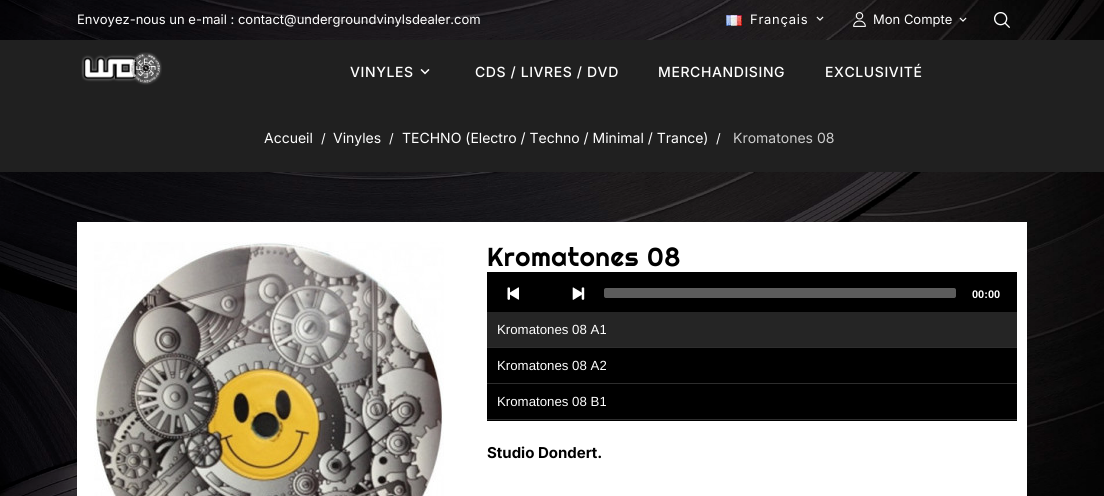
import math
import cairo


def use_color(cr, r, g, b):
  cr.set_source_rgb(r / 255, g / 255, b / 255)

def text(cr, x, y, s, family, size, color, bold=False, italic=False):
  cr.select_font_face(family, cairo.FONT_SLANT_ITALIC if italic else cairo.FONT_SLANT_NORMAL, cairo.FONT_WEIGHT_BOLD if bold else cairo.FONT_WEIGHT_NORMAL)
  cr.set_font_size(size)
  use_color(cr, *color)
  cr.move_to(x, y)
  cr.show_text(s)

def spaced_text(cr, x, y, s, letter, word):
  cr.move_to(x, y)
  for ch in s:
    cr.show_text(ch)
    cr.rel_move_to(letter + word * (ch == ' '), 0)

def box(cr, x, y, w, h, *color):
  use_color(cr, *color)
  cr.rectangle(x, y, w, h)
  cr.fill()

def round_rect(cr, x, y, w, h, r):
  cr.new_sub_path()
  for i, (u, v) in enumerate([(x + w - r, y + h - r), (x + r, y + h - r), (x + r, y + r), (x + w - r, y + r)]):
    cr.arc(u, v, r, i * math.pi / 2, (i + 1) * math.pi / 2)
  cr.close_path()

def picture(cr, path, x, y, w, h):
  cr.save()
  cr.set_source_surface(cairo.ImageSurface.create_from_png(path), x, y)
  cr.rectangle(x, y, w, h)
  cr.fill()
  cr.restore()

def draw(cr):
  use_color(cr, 255, 255, 255)
  cr.paint()
  picture(cr, "img_01.png", 0, 0, 1104, 496)
  picture(cr, "img_02.png", 726, 15, 16, 11)
  picture(cr, "img_03.png", 816, 16, 8, 5)
  picture(cr, "img_04.png", 853, 12, 13, 15)
  picture(cr, "img_05.png", 959, 17, 8, 5)
  picture(cr, "img_06.png", 994, 12, 16, 16)
  box(cr, 0, 40, 1104, 132, 32, 32, 32)
  picture(cr, "img_07.png", 81, 52, 81, 33)
  picture(cr, "img_08.png", 420, 69, 10, 6)
  box(cr, 77, 222, 950, 274, 255, 255, 255)
  picture(cr, "img_09.png", 94, 242, 350, 254)
  box(cr, 487, 272, 530, 40, 0, 0, 0)
  picture(cr, "img_10.png", 507, 287, 12, 13)
  picture(cr, "img_11.png", 572, 287, 13, 13)
  use_color(cr, 92, 92, 92)
  round_rect(cr, 604, 288, 352, 10, 2)
  cr.fill()
  box(cr, 487, 348, 530, 73, 0, 0, 0)
  box(cr, 487, 312, 530, 35, 37, 37, 37)
  box(cr, 487, 347, 530, 1, 45, 45, 45)
  box(cr, 487, 383, 530, 1, 45, 45, 45)
  box(cr, 487, 419, 530, 1, 45, 45, 45)
  text(cr, 77, 24, "Envoyez-nous un e-mail : contact@undergroundvinylsdealer.com", "Inter", 13, (255, 255, 255))
  spaced_text(cr, 750, 24, "Français", 0.75, 0)
  text(cr, 873, 24, "Mon Compte", "Inter", 13, (255, 255, 255))
  cr.select_font_face("Inter Medium")
  cr.set_font_size(14)
  spaced_text(cr, 350, 77, "VINYLES", 0.6, 0)
  spaced_text(cr, 475, 77, "CDS / LIVRES / DVD", 0.6, 0)
  spaced_text(cr, 658, 77, "MERCHANDISING", 0.6, 0)
  spaced_text(cr, 825, 77, "EXCLUSIVITÉ", 0.6, 0)
  text(cr, 264, 143, "Accueil", "Inter", 14, (255, 255, 255))
  text(cr, 321, 143, "/", "Inter", 13, (255, 255, 255))
  text(cr, 333, 143, "Vinyles", "Inter", 14, (255, 255, 255))
  text(cr, 389, 143, "/", "Inter", 13, (255, 255, 255))
  text(cr, 402, 143, "TECHNO (Electro / Techno / Minimal / Trance)", "Inter", 14, (255, 255, 255))
  text(cr, 716, 143, "/", "Inter", 13, (255, 255, 255))
  text(cr, 733, 143, "Kromatones 08", "Inter", 14, (204, 204, 204))
  cr.select_font_face("Righteous")
  cr.set_font_size(26)
  use_color(cr, 0, 0, 0)
  spaced_text(cr, 487, 266, "Kromatones 08", 0.6, 0)
  text(cr, 972, 298, "00:00", "Liberation Sans", 11, (255, 255, 255), bold=True)
  text(cr, 497, 334, "Kromatones 08 A1", "Liberation Sans", 13.25, (255, 255, 255))
  text(cr, 497, 370, "Kromatones 08 A2", "Liberation Sans", 13.25, (255, 255, 255))
  text(cr, 497, 406, "Kromatones 08 B1", "Liberation Sans", 13.25, (255, 255, 255))
  text(cr, 487, 458, "Studio Dondert.", "Inter", 15, (0, 0, 0), bold=True)


surface = cairo.ImageSurface(cairo.FORMAT_RGB24, 1104, 496)
cr = cairo.Context(surface)
options = cairo.FontOptions()
options.set_hint_metrics(cairo.HINT_METRICS_OFF)
options.set_hint_style(cairo.HINT_STYLE_NONE)
cr.set_font_options(options)
cr.set_miter_limit(4)
draw(cr)
surface.write_to_png("out.png")
